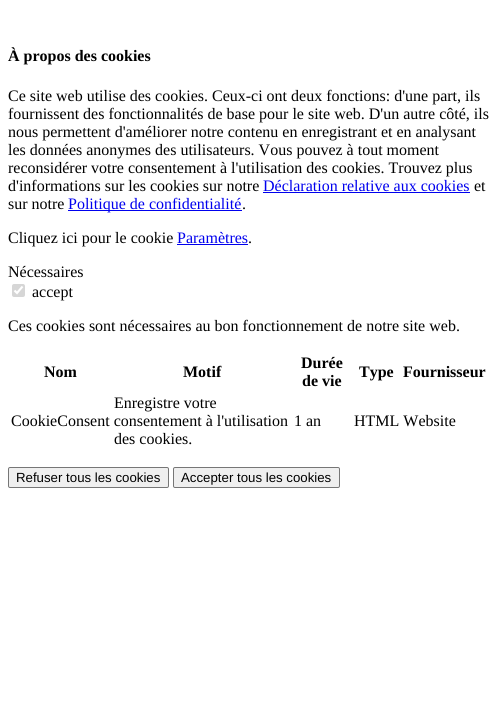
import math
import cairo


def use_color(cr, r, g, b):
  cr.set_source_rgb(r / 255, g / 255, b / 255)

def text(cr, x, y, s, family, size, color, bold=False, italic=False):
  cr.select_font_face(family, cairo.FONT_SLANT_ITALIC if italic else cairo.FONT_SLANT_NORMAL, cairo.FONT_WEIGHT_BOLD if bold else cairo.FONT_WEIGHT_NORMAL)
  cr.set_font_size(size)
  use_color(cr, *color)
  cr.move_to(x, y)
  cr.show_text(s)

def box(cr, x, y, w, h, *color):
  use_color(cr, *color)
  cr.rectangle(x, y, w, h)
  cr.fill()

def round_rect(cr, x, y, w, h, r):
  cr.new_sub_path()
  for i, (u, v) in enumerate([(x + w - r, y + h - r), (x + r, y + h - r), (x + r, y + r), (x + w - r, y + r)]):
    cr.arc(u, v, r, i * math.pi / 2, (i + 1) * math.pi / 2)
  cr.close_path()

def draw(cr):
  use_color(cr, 255, 255, 255)
  cr.paint()
  box(cr, 263, 192, 207, 1, 0, 0, 238)
  box(cr, 68, 210, 174, 1, 0, 0, 238)
  box(cr, 177, 244, 71, 1, 0, 0, 238)
  use_color(cr, 214, 214, 214)
  round_rect(cr, 12, 284, 13, 13, 2)
  cr.fill()
  cr.new_path()
  cr.move_to(14.5, 290.5)
  cr.line_to(17, 293)
  cr.line_to(22.5, 286.5)
  use_color(cr, 255, 255, 255)
  cr.set_line_width(2.1)
  cr.stroke()
  use_color(cr, 239, 239, 239)
  round_rect(cr, 8.5, 467.5, 160, 20, 1.5)
  cr.fill_preserve()
  use_color(cr, 118, 118, 118)
  cr.set_line_width(1)
  cr.stroke()
  use_color(cr, 239, 239, 239)
  round_rect(cr, 173.5, 467.5, 166, 20, 1.5)
  cr.fill_preserve()
  use_color(cr, 118, 118, 118)
  cr.stroke()
  text(cr, 8, 61, "À propos des cookies", "Liberation Serif", 16, (0, 0, 0), bold=True)
  text(cr, 8, 101, "Ce site web utilise des cookies. Ceux-ci ont deux fonctions: d'une part, ils", "Liberation Serif", 16, (0, 0, 0))
  text(cr, 8, 119, "fournissent des fonctionnalités de base pour le site web. D'un autre côté, ils", "Liberation Serif", 16, (0, 0, 0))
  text(cr, 8, 137, "nous permettent d'améliorer notre contenu en enregistrant et en analysant", "Liberation Serif", 16, (0, 0, 0))
  text(cr, 8, 155, "les données anonymes des utilisateurs. Vous pouvez à tout moment", "Liberation Serif", 16, (0, 0, 0))
  text(cr, 8, 173, "reconsidérer votre consentement à l'utilisation des cookies. Trouvez plus", "Liberation Serif", 16, (0, 0, 0))
  text(cr, 8, 191, "d'informations sur les cookies sur notre", "Liberation Serif", 16, (0, 0, 0))
  text(cr, 263, 191, "Déclaration relative aux cookies", "Liberation Serif", 16, (0, 0, 238))
  text(cr, 474, 191, "et", "Liberation Serif", 16, (0, 0, 0))
  text(cr, 8, 209, "sur notre", "Liberation Serif", 16, (0, 0, 0))
  text(cr, 68, 209, "Politique de confidentialité", "Liberation Serif", 16, (0, 0, 238))
  text(cr, 242, 209, ".", "Liberation Serif", 16, (0, 0, 0))
  text(cr, 8, 243, "Cliquez ici pour le cookie", "Liberation Serif", 16, (0, 0, 0))
  text(cr, 177, 243, "Paramètres", "Liberation Serif", 16, (0, 0, 238))
  text(cr, 248, 243, ".", "Liberation Serif", 16, (0, 0, 0))
  text(cr, 8, 277, "Nécessaires", "Liberation Serif", 16, (0, 0, 0))
  text(cr, 32, 297, "accept", "Liberation Serif", 16, (0, 0, 0))
  text(cr, 8, 331, "Ces cookies sont nécessaires au bon fonctionnement de notre site web.", "Liberation Serif", 16, (0, 0, 0))
  text(cr, 44, 377, "Nom", "Liberation Serif", 16, (0, 0, 0), bold=True)
  text(cr, 183, 377, "Motif", "Liberation Serif", 16, (0, 0, 0), bold=True)
  text(cr, 301, 368, "Durée", "Liberation Serif", 16, (0, 0, 0), bold=True)
  text(cr, 302, 386, "de vie", "Liberation Serif", 16, (0, 0, 0), bold=True)
  text(cr, 359, 377, "Type", "Liberation Serif", 16, (0, 0, 0), bold=True)
  text(cr, 403, 377, "Fournisseur", "Liberation Serif", 16, (0, 0, 0), bold=True)
  text(cr, 114, 408, "Enregistre votre", "Liberation Serif", 16, (0, 0, 0))
  text(cr, 114, 444, "des cookies.", "Liberation Serif", 16, (0, 0, 0))
  text(cr, 11, 426, "CookieConsent consentement à l'utilisation", "Liberation Serif", 16, (0, 0, 0))
  text(cr, 294, 426, "1 an", "Liberation Serif", 16, (0, 0, 0))
  text(cr, 354, 426, "HTML Website", "Liberation Serif", 16, (0, 0, 0))
  text(cr, 16, 482, "Refuser tous les cookies", "Liberation Sans", 13.25, (0, 0, 0))
  text(cr, 181, 482, "Accepter tous les cookies", "Liberation Sans", 13.25, (0, 0, 0))


surface = cairo.ImageSurface(cairo.FORMAT_RGB24, 497, 707)
cr = cairo.Context(surface)
options = cairo.FontOptions()
options.set_hint_metrics(cairo.HINT_METRICS_OFF)
options.set_hint_style(cairo.HINT_STYLE_NONE)
cr.set_font_options(options)
cr.set_miter_limit(4)
draw(cr)
surface.write_to_png("out.png")
